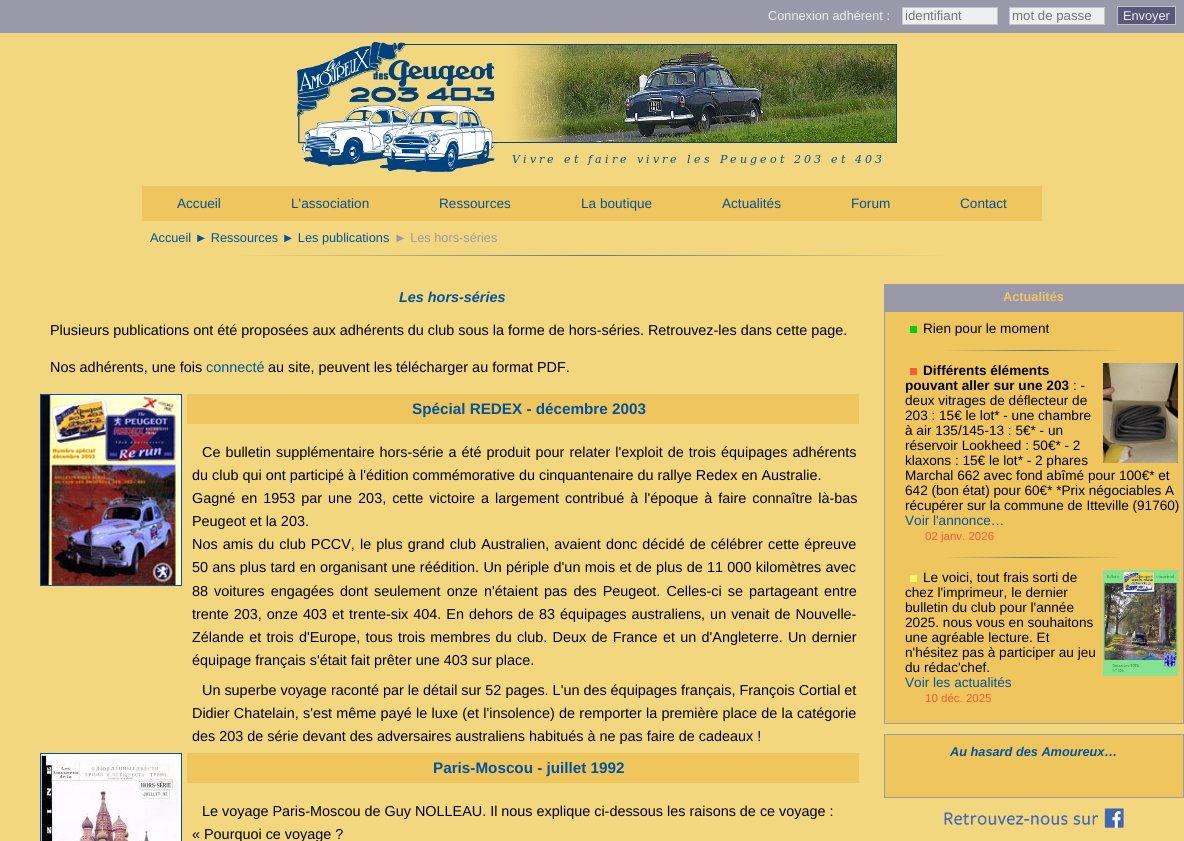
import math
import cairo


def use_color(cr, r, g, b):
  cr.set_source_rgb(r / 255, g / 255, b / 255)

def text(cr, x, y, s, family, size, color, bold=False, italic=False):
  cr.select_font_face(family, cairo.FONT_SLANT_ITALIC if italic else cairo.FONT_SLANT_NORMAL, cairo.FONT_WEIGHT_BOLD if bold else cairo.FONT_WEIGHT_NORMAL)
  cr.set_font_size(size)
  use_color(cr, *color)
  cr.move_to(x, y)
  cr.show_text(s)

def spaced_text(cr, x, y, s, letter, word):
  cr.move_to(x, y)
  for ch in s:
    cr.show_text(ch)
    cr.rel_move_to(letter + word * (ch == ' '), 0)

def box(cr, x, y, w, h, *color):
  use_color(cr, *color)
  cr.rectangle(x, y, w, h)
  cr.fill()

def picture(cr, path, x, y, w, h):
  cr.save()
  cr.set_source_surface(cairo.ImageSurface.create_from_png(path), x, y)
  cr.rectangle(x, y, w, h)
  cr.fill()
  cr.restore()

def draw(cr):
  use_color(cr, 242, 215, 127)
  cr.paint()
  box(cr, 0, 0, 1184, 33, 154, 153, 169)
  use_color(cr, 239, 239, 240)
  cr.rectangle(902.5, 7.5, 95, 17)
  cr.fill_preserve()
  use_color(cr, 195, 195, 202)
  cr.set_line_width(1)
  cr.stroke()
  use_color(cr, 239, 239, 240)
  cr.rectangle(1009.5, 7.5, 95, 17)
  cr.fill_preserve()
  use_color(cr, 195, 195, 202)
  cr.stroke()
  use_color(cr, 90, 88, 122)
  cr.rectangle(1117.5, 6.5, 58, 18)
  cr.fill_preserve()
  use_color(cr, 195, 195, 202)
  cr.stroke()
  picture(cr, "img_01.png", 287, 42, 610, 130)
  box(cr, 142, 186, 900, 35, 239, 197, 93)
  gradient = cairo.LinearGradient(237, 256, 947, 255)
  gradient.add_color_stop_rgba(0, 0.949, 0.843, 0.498, 1)
  gradient.add_color_stop_rgba(0.5, 0.333, 0.506, 0.576, 1)
  gradient.add_color_stop_rgba(1, 0.949, 0.843, 0.498, 1)
  cr.set_source(gradient)
  cr.rectangle(237, 255, 710, 1)
  cr.fill()
  cr.rectangle(40.5, 394.5, 141, 191)
  use_color(cr, 0, 83, 157)
  cr.stroke()
  picture(cr, "img_02.png", 41, 395, 140, 190)
  box(cr, 187, 394, 672, 30, 239, 197, 93)
  cr.rectangle(40.5, 753.5, 141, 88)
  use_color(cr, 0, 83, 157)
  cr.stroke()
  picture(cr, "img_03.png", 41, 754, 140, 87)
  box(cr, 187, 753, 672, 30, 239, 197, 93)
  box(cr, 885, 312, 298, 411, 239, 197, 93)
  box(cr, 884, 284, 300, 28, 154, 153, 169)
  box(cr, 1183, 312, 1, 412, 154, 153, 169)
  box(cr, 884, 723, 300, 1, 154, 153, 169)
  box(cr, 884, 312, 1, 412, 154, 153, 169)
  box(cr, 910, 326, 7, 7, 0, 206, 13)
  gradient = cairo.LinearGradient(945, 351, 1123, 351)
  gradient.add_color_stop_rgba(0, 0.937, 0.773, 0.365, 1)
  gradient.add_color_stop_rgba(0.5, 0.329, 0.482, 0.529, 1)
  gradient.add_color_stop_rgba(1, 0.937, 0.773, 0.365, 1)
  cr.set_source(gradient)
  cr.rectangle(945, 350, 178, 1)
  cr.fill()
  box(cr, 910, 368, 7, 7, 252, 91, 55)
  picture(cr, "img_04.png", 1103, 363, 75, 100)
  gradient = cairo.LinearGradient(945, 558, 1123, 558)
  gradient.add_color_stop_rgba(0, 0.937, 0.773, 0.365, 1)
  gradient.add_color_stop_rgba(0.5, 0.329, 0.482, 0.529, 1)
  gradient.add_color_stop_rgba(1, 0.937, 0.773, 0.365, 1)
  cr.set_source(gradient)
  cr.rectangle(945, 557, 178, 1)
  cr.fill()
  box(cr, 910, 575, 7, 7, 239, 252, 93)
  picture(cr, "img_05.png", 1103, 570, 75, 106)
  use_color(cr, 239, 197, 93)
  cr.rectangle(884.5, 734.5, 299, 63)
  cr.fill_preserve()
  use_color(cr, 154, 153, 169)
  cr.stroke()
  picture(cr, "img_06.png", 944, 808, 180, 20)
  text(cr, 768, 20, "Connexion adhérent :", "Liberation Sans", 12.75, (239, 239, 240))
  text(cr, 905, 20, "identifiant", "Liberation Sans", 13.25, (117, 117, 117))
  text(cr, 1012, 20, "mot de passe", "Liberation Sans", 13.25, (117, 117, 117))
  text(cr, 1123, 20, "Envoyer", "Liberation Sans", 12.75, (239, 239, 240))
  text(cr, 177, 208, "Accueil", "Liberation Sans", 13.6, (0, 83, 157))
  text(cr, 291, 208, "L'association", "Liberation Sans", 13.6, (0, 83, 157))
  text(cr, 439, 208, "Ressources", "Liberation Sans", 13.6, (0, 83, 157))
  text(cr, 581, 208, "La boutique", "Liberation Sans", 13.6, (0, 83, 157))
  text(cr, 722, 208, "Actualités", "Liberation Sans", 13.6, (0, 83, 157))
  text(cr, 851, 208, "Forum", "Liberation Sans", 13.6, (0, 83, 157))
  text(cr, 960, 208, "Contact", "Liberation Sans", 13.6, (0, 83, 157))
  text(cr, 150, 242, "Accueil ► Ressources ► Les publications", "Liberation Sans", 12.75, (0, 83, 157))
  text(cr, 394, 242, "► Les hors-séries", "Liberation Sans", 12.75, (154, 153, 169))
  text(cr, 399, 302, "Les hors-séries", "Liberation Sans", 14.4, (0, 83, 157), bold=True, italic=True)
  text(cr, 50, 335, "Plusieurs publications ont été proposées aux adhérents du club sous la forme de hors-séries. Retrouvez-les dans cette page.", "Liberation Sans", 14.4, (0, 0, 0))
  text(cr, 50, 372, "Nos adhérents, une fois", "Liberation Sans", 14.4, (0, 0, 0))
  text(cr, 206, 372, "connecté", "Liberation Sans", 14.4, (0, 83, 157))
  text(cr, 268, 372, "au site, peuvent les télécharger au format PDF.", "Liberation Sans", 14.4, (0, 0, 0))
  text(cr, 412, 414, "Spécial REDEX - décembre 2003", "Liberation Sans", 15.25, (0, 83, 157), bold=True)
  cr.select_font_face("Liberation Sans")
  cr.set_font_size(14.4)
  use_color(cr, 0, 0, 0)
  spaced_text(cr, 202, 457, "Ce bulletin supplémentaire hors-série a été produit pour relater l'exploit de trois équipages adhérents", 0, 1)
  text(cr, 192, 480, "du club qui ont participé à l'édition commémorative du cinquantenaire du rallye Redex en Australie.", "Liberation Sans", 14.4, (0, 0, 0))
  spaced_text(cr, 192, 503, "Gagné en 1953 par une 203, cette victoire a largement contribué à l'époque à faire connaître là-bas", 0, 2)
  text(cr, 192, 526, "Peugeot et la 203.", "Liberation Sans", 14.4, (0, 0, 0))
  spaced_text(cr, 192, 549, "Nos amis du club PCCV, le plus grand club Australien, avaient donc décidé de célébrer cette épreuve", 0, 1.1)
  spaced_text(cr, 192, 572, "50 ans plus tard en organisant une réédition. Un périple d'un mois et de plus de 11 000 kilomètres avec", 0, 0.3)
  spaced_text(cr, 192, 596, "88 voitures engagées dont seulement onze n'étaient pas des Peugeot. Celles-ci se partageant entre", 0, 2.1)
  spaced_text(cr, 192, 619, "trente 203, onze 403 et trente-six 404. En dehors", 0, 1)
  spaced_text(cr, 518, 619, "de 83 équipages australiens, un venait de Nouvelle-", 0, 1)
  spaced_text(cr, 192, 642, "Zélande et trois d'Europe, tous trois membres du club. Deux de France", 0, 1.25)
  spaced_text(cr, 663, 642, "et un d'Angleterre. Un dernier", 0, 1.25)
  text(cr, 192, 665, "équipage français s'était fait prêter une 403 sur place.", "Liberation Sans", 14.4, (0, 0, 0))
  text(cr, 202, 695, "Un superbe voyage raconté par le détail sur 52 pages. L'un des équipages français, François Cortial et", "Liberation Sans", 14.4, (0, 0, 0))
  spaced_text(cr, 192, 718, "Didier Chatelain, s'est même payé le luxe (et l'insolence) de remporter la première place de la catégorie", 0, 0.25)
  text(cr, 192, 741, "des 203 de série devant des adversaires australiens habitués à ne pas faire de cadeaux !", "Liberation Sans", 14.4, (0, 0, 0))
  text(cr, 433, 773, "Paris-Moscou - juillet 1992", "Liberation Sans", 15.25, (0, 83, 157), bold=True)
  text(cr, 202, 816, "Le voyage Paris-Moscou de Guy NOLLEAU. Il nous explique ci-dessous les raisons de ce voyage :", "Liberation Sans", 14.4, (0, 0, 0))
  text(cr, 192, 839, "« Pourquoi ce voyage ?", "Liberation Sans", 14.4, (0, 0, 0))
  text(cr, 1003, 301, "Actualités", "Liberation Sans", 12.75, (239, 197, 93), bold=True)
  text(cr, 923, 333, "Rien pour le moment", "Liberation Sans", 13.6, (0, 0, 0))
  text(cr, 923, 375, "Différents éléments", "Liberation Sans", 13.6, (0, 0, 0), bold=True)
  text(cr, 905, 390, "pouvant aller sur une 203", "Liberation Sans", 13.6, (0, 0, 0), bold=True)
  text(cr, 1073, 390, ": -", "Liberation Sans", 13.6, (0, 0, 0))
  text(cr, 905, 405, "deux vitrages de déflecteur de", "Liberation Sans", 13.6, (0, 0, 0))
  text(cr, 905, 420, "203 : 15€ le lot* - une chambre", "Liberation Sans", 13.6, (0, 0, 0))
  text(cr, 905, 435, "à air 135/145-13 : 5€* - un", "Liberation Sans", 13.6, (0, 0, 0))
  text(cr, 905, 450, "réservoir Lookheed : 50€* - 2", "Liberation Sans", 13.6, (0, 0, 0))
  text(cr, 905, 465, "klaxons : 15€ le lot* - 2 phares", "Liberation Sans", 13.6, (0, 0, 0))
  text(cr, 905, 480, "Marchal 662 avec fond abîmé pour 100€* et", "Liberation Sans", 13.6, (0, 0, 0))
  text(cr, 905, 495, "642 (bon état) pour 60€* *Prix négociables A", "Liberation Sans", 13.6, (0, 0, 0))
  text(cr, 905, 510, "récupérer sur la commune de Itteville (91760)", "Liberation Sans", 13.6, (0, 0, 0))
  text(cr, 905, 525, "Voir l'annonce…", "Liberation Sans", 13.6, (0, 83, 157))
  text(cr, 925, 540, "02 janv. 2026", "Liberation Sans", 11.5, (252, 91, 55))
  text(cr, 923, 582, "Le voici, tout frais sorti de", "Liberation Sans", 13.6, (0, 0, 0))
  text(cr, 905, 597, "chez l'imprimeur, le dernier", "Liberation Sans", 13.6, (0, 0, 0))
  text(cr, 905, 612, "bulletin du club pour l'année", "Liberation Sans", 13.6, (0, 0, 0))
  text(cr, 905, 627, "2025. nous vous en souhaitons", "Liberation Sans", 13.6, (0, 0, 0))
  text(cr, 905, 642, "une agréable lecture. Et", "Liberation Sans", 13.6, (0, 0, 0))
  text(cr, 905, 657, "n'hésitez pas à participer au jeu", "Liberation Sans", 13.6, (0, 0, 0))
  text(cr, 905, 672, "du rédac'chef.", "Liberation Sans", 13.6, (0, 0, 0))
  text(cr, 905, 687, "Voir les actualités", "Liberation Sans", 13.6, (0, 83, 157))
  text(cr, 925, 702, "10 déc. 2025", "Liberation Sans", 11.5, (252, 91, 55))
  text(cr, 950, 756, "Au hasard des Amoureux…", "Liberation Sans", 12.75, (0, 83, 157), bold=True, italic=True)


surface = cairo.ImageSurface(cairo.FORMAT_RGB24, 1184, 841)
cr = cairo.Context(surface)
options = cairo.FontOptions()
options.set_hint_metrics(cairo.HINT_METRICS_OFF)
options.set_hint_style(cairo.HINT_STYLE_NONE)
cr.set_font_options(options)
cr.set_miter_limit(4)
draw(cr)
surface.write_to_png("out.png")
